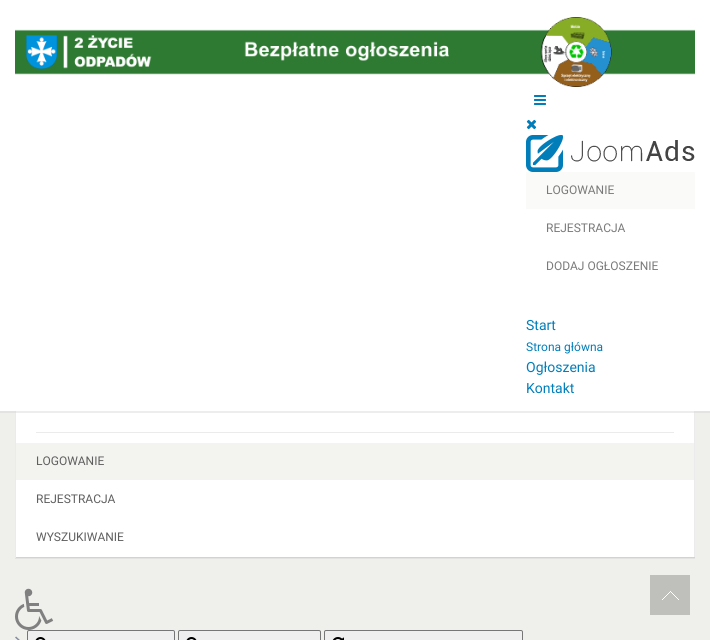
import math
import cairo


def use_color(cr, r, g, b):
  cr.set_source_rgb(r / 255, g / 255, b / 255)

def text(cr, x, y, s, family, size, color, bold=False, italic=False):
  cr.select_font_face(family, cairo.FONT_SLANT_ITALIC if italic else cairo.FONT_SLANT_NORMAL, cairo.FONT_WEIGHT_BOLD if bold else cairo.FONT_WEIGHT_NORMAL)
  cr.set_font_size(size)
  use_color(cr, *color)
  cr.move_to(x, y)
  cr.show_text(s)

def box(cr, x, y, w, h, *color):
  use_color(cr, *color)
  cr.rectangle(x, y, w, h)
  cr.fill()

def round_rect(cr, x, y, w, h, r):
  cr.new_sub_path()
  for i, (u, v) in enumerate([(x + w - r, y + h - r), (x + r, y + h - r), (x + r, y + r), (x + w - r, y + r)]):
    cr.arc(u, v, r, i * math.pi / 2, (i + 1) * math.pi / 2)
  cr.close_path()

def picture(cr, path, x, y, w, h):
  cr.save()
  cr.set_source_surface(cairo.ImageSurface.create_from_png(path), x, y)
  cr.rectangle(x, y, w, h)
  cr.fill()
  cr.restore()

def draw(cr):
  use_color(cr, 239, 239, 235)
  cr.paint()
  box(cr, 0, 411, 710, 2, 227, 227, 225)
  box(cr, 0, 0, 710, 411, 255, 255, 255)
  picture(cr, "img_01.png", 15, 17, 680, 70)
  picture(cr, "img_02.png", 534, 95, 12, 10)
  picture(cr, "img_03.png", 526, 119, 11, 11)
  picture(cr, "img_04.png", 526, 135, 169, 37)
  box(cr, 526, 172, 169, 37, 250, 250, 248)
  box(cr, 15, 558, 680, 1, 227, 227, 225)
  box(cr, 16, 413, 678, 144, 255, 255, 255)
  box(cr, 15, 411, 680, 2, 237, 237, 237)
  box(cr, 694, 413, 1, 145, 235, 235, 235)
  box(cr, 694, 411, 1, 2, 225, 225, 225)
  box(cr, 15, 557, 680, 1, 210, 210, 210)
  box(cr, 15, 413, 1, 145, 235, 235, 235)
  box(cr, 15, 411, 1, 2, 225, 225, 225)
  box(cr, 36, 432, 638, 1, 235, 235, 235)
  box(cr, 16, 443, 678, 37, 243, 243, 240)
  picture(cr, "img_05.png", 15, 588, 39, 42)
  picture(cr, "img_06.png", 15, 636, 5, 4)
  use_color(cr, 239, 239, 239)
  round_rect(cr, 27.5, 630.5, 147, 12, 1.5)
  cr.fill_preserve()
  use_color(cr, 118, 118, 118)
  cr.set_line_width(1)
  cr.stroke()
  picture(cr, "img_07.png", 35, 637, 11, 3)
  use_color(cr, 239, 239, 239)
  round_rect(cr, 178.5, 630.5, 142, 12, 1.5)
  cr.fill_preserve()
  use_color(cr, 118, 118, 118)
  cr.stroke()
  picture(cr, "img_07.png", 186, 637, 11, 3)
  use_color(cr, 239, 239, 239)
  round_rect(cr, 324.5, 630.5, 198, 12, 1.5)
  cr.fill_preserve()
  use_color(cr, 118, 118, 118)
  cr.stroke()
  picture(cr, "img_08.png", 332, 637, 12, 3)
  box(cr, 650, 575, 40, 40, 191, 191, 188)
  picture(cr, "img_09.png", 662, 591, 17, 9)
  text(cr, 546, 194, "LOGOWANIE", "Roboto", 12, (122, 122, 122))
  text(cr, 546, 232, "REJESTRACJA", "Roboto", 12, (122, 122, 122))
  text(cr, 546, 270, "DODAJ OGŁOSZENIE", "Roboto", 12, (122, 122, 122))
  text(cr, 526, 330, "Start", "Roboto", 14, (1, 126, 186))
  text(cr, 526, 351, "Strona główna", "Roboto", 12, (1, 126, 186))
  text(cr, 526, 372, "Ogłoszenia", "Roboto", 14, (1, 126, 186))
  text(cr, 526, 393, "Kontakt", "Roboto", 14, (1, 126, 186))
  text(cr, 36, 465, "LOGOWANIE", "Roboto", 12, (95, 95, 95))
  text(cr, 36, 503, "REJESTRACJA", "Roboto", 12, (95, 95, 95))
  text(cr, 36, 541, "WYSZUKIWANIE", "Roboto", 12, (95, 95, 95))


surface = cairo.ImageSurface(cairo.FORMAT_RGB24, 710, 640)
cr = cairo.Context(surface)
options = cairo.FontOptions()
options.set_hint_metrics(cairo.HINT_METRICS_OFF)
options.set_hint_style(cairo.HINT_STYLE_NONE)
cr.set_font_options(options)
cr.set_miter_limit(4)
draw(cr)
surface.write_to_png("out.png")
